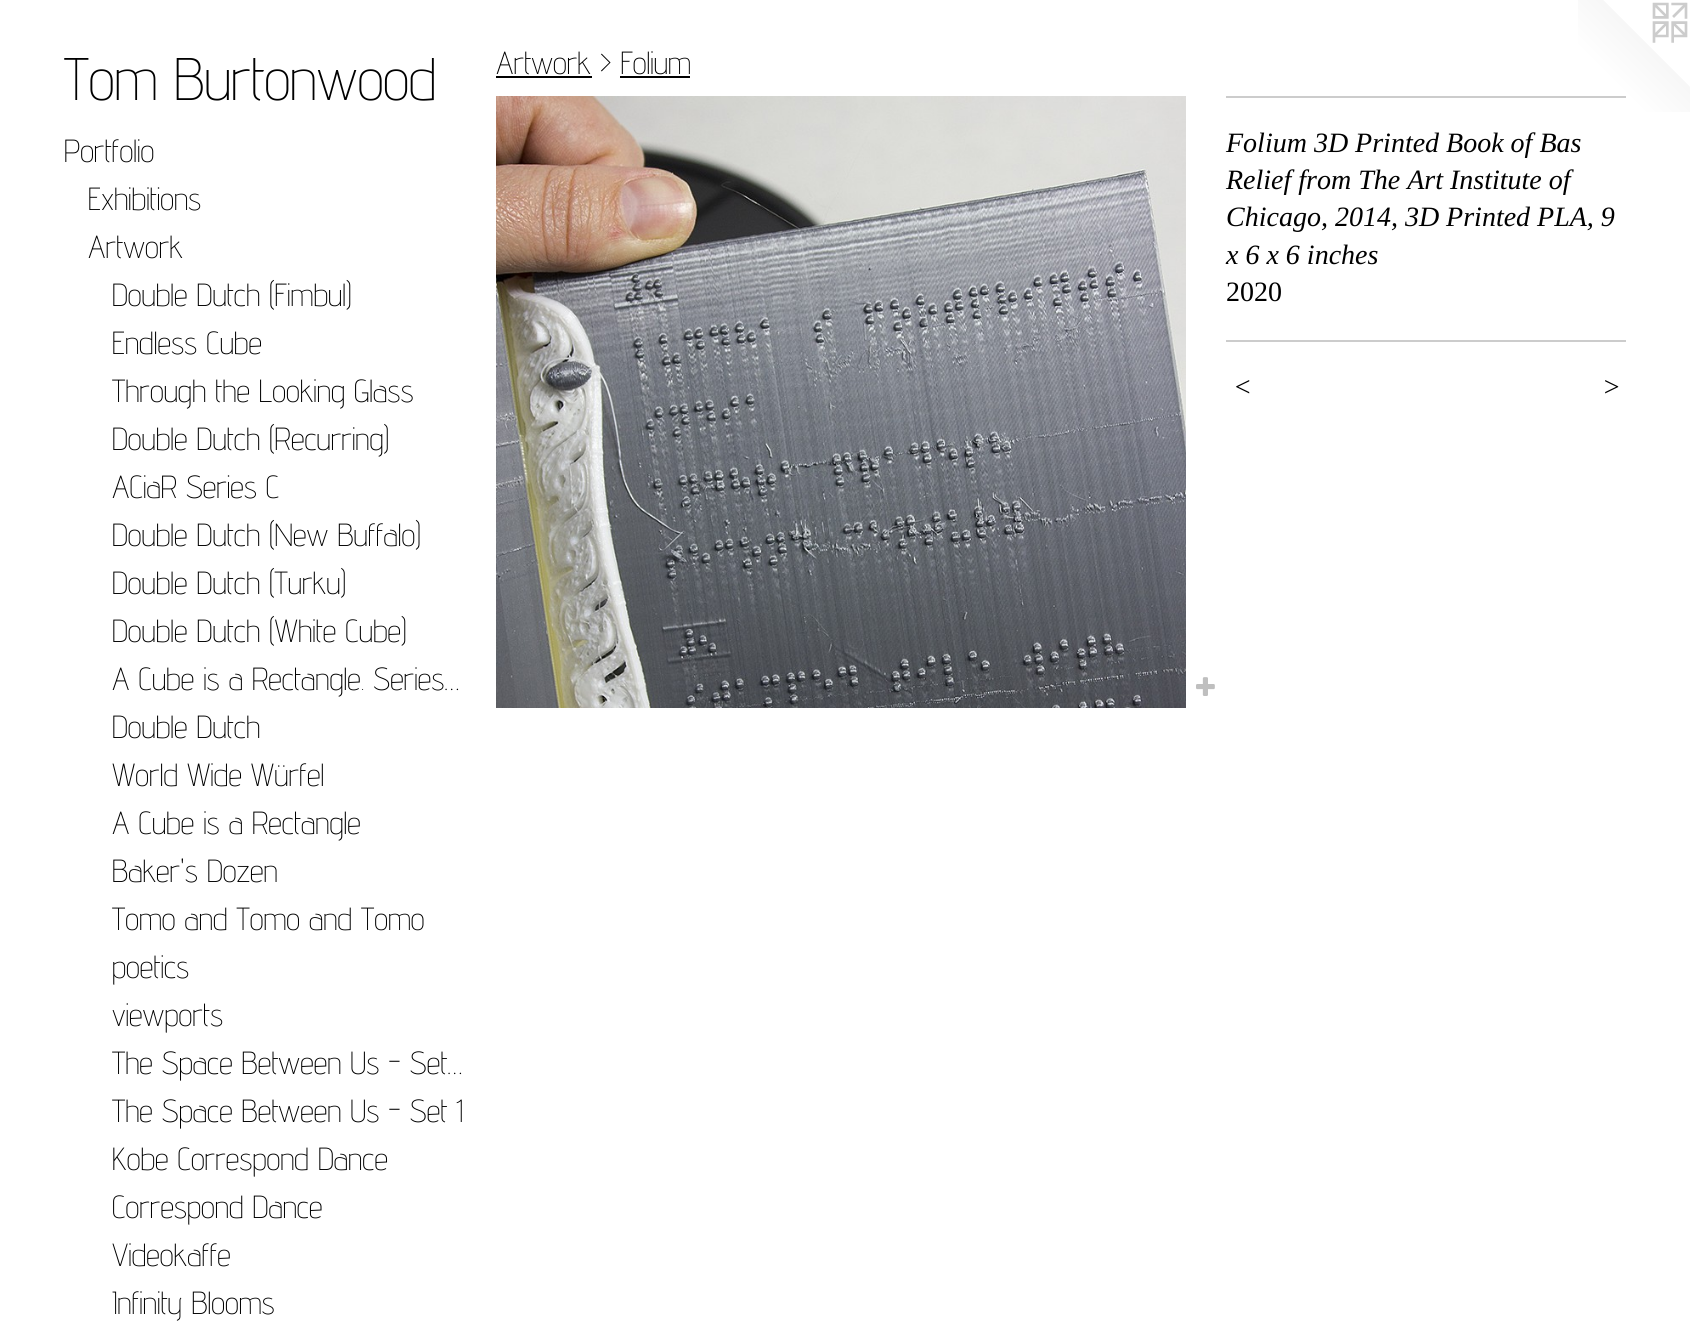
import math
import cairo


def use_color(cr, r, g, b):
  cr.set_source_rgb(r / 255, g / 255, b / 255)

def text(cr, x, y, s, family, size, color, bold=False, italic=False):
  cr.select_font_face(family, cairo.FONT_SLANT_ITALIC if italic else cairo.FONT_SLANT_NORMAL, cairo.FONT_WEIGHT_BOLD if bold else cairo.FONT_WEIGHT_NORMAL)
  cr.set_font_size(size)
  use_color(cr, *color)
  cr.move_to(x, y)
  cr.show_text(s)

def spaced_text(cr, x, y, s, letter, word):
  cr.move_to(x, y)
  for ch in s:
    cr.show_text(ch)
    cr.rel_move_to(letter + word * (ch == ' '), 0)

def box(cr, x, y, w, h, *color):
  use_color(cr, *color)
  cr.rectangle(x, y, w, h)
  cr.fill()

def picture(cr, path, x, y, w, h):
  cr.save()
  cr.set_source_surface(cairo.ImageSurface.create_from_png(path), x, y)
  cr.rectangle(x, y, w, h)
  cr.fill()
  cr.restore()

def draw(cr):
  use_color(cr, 255, 255, 255)
  cr.paint()
  box(cr, 496, 76, 96, 2, 0, 0, 0)
  box(cr, 620, 76, 70, 2, 0, 0, 0)
  picture(cr, "img_01.png", 496, 96, 690, 612)
  picture(cr, "img_02.png", 1196, 677, 19, 19)
  picture(cr, "img_03.png", 1578, 0, 112, 112)
  box(cr, 1226, 96, 400, 2, 204, 204, 204)
  box(cr, 1226, 340, 400, 2, 204, 204, 204)
  text(cr, 64, 100, "Tom Burtonwood", "Advent Pro ExtraLight", 60, (0, 0, 0))
  text(cr, 64, 162, "Portfolio", "Advent Pro ExtraLight", 32, (0, 0, 0))
  text(cr, 88, 210, "Exhibitions", "Advent Pro ExtraLight", 32, (0, 0, 0))
  text(cr, 88, 258, "Artwork", "Advent Pro ExtraLight", 32, (0, 0, 0))
  text(cr, 112, 306, "Double Dutch (Fimbul)", "Advent Pro ExtraLight", 32, (0, 0, 0))
  text(cr, 112, 354, "Endless Cube", "Advent Pro ExtraLight", 32, (0, 0, 0))
  text(cr, 112, 402, "Through the Looking Glass", "Advent Pro ExtraLight", 32, (0, 0, 0))
  text(cr, 112, 450, "Double Dutch (Recurring)", "Advent Pro ExtraLight", 32, (0, 0, 0))
  text(cr, 112, 498, "ACiaR Series C", "Advent Pro ExtraLight", 32, (0, 0, 0))
  text(cr, 112, 546, "Double Dutch (New Buffalo)", "Advent Pro ExtraLight", 32, (0, 0, 0))
  text(cr, 112, 594, "Double Dutch (Turku)", "Advent Pro ExtraLight", 32, (0, 0, 0))
  text(cr, 112, 642, "Double Dutch (White Cube)", "Advent Pro ExtraLight", 32, (0, 0, 0))
  text(cr, 112, 690, "A Cube is a Rectangle. Series…", "Advent Pro ExtraLight", 32, (0, 0, 0))
  text(cr, 112, 738, "Double Dutch", "Advent Pro ExtraLight", 32, (0, 0, 0))
  text(cr, 112, 786, "World Wide Würfel", "Advent Pro ExtraLight", 32, (0, 0, 0))
  text(cr, 112, 834, "A Cube is a Rectangle", "Advent Pro ExtraLight", 32, (0, 0, 0))
  text(cr, 112, 882, "Baker's Dozen", "Advent Pro ExtraLight", 32, (0, 0, 0))
  text(cr, 112, 930, "Tomo and Tomo and Tomo", "Advent Pro ExtraLight", 32, (0, 0, 0))
  text(cr, 112, 978, "poetics", "Advent Pro ExtraLight", 32, (0, 0, 0))
  text(cr, 112, 1026, "viewports", "Advent Pro ExtraLight", 32, (0, 0, 0))
  text(cr, 112, 1074, "The Space Between Us - Set…", "Advent Pro ExtraLight", 32, (0, 0, 0))
  text(cr, 112, 1122, "The Space Between Us - Set 1", "Advent Pro ExtraLight", 32, (0, 0, 0))
  text(cr, 112, 1170, "Kobe Correspond Dance", "Advent Pro ExtraLight", 32, (0, 0, 0))
  text(cr, 112, 1218, "Correspond Dance", "Advent Pro ExtraLight", 32, (0, 0, 0))
  text(cr, 112, 1266, "Videokaffe", "Advent Pro ExtraLight", 32, (0, 0, 0))
  text(cr, 112, 1314, "Infinity Blooms", "Advent Pro ExtraLight", 32, (0, 0, 0))
  text(cr, 496, 74, "Artwork > Folium", "Advent Pro ExtraLight", 32, (0, 0, 0))
  text(cr, 1226, 152, "Folium 3D Printed Book of Bas", "Liberation Serif", 28, (0, 0, 0), italic=True)
  text(cr, 1226, 189, "Relief from The Art Institute of", "Liberation Serif", 28, (0, 0, 0), italic=True)
  text(cr, 1226, 226, "Chicago, 2014, 3D Printed PLA, 9", "Liberation Serif", 28, (0, 0, 0), italic=True)
  text(cr, 1226, 264, "x 6 x 6 inches", "Liberation Serif", 28, (0, 0, 0), italic=True)
  text(cr, 1226, 301, "2020", "Liberation Serif", 28, (0, 0, 0))
  cr.select_font_face("Liberation Serif", cairo.FONT_SLANT_ITALIC)
  spaced_text(cr, 1233, 396, "<", 2, 0)
  spaced_text(cr, 1602, 396, ">", 2, 0)


surface = cairo.ImageSurface(cairo.FORMAT_RGB24, 1690, 1338)
cr = cairo.Context(surface)
options = cairo.FontOptions()
options.set_hint_metrics(cairo.HINT_METRICS_OFF)
options.set_hint_style(cairo.HINT_STYLE_NONE)
cr.set_font_options(options)
cr.set_miter_limit(4)
draw(cr)
surface.write_to_png("out.png")
